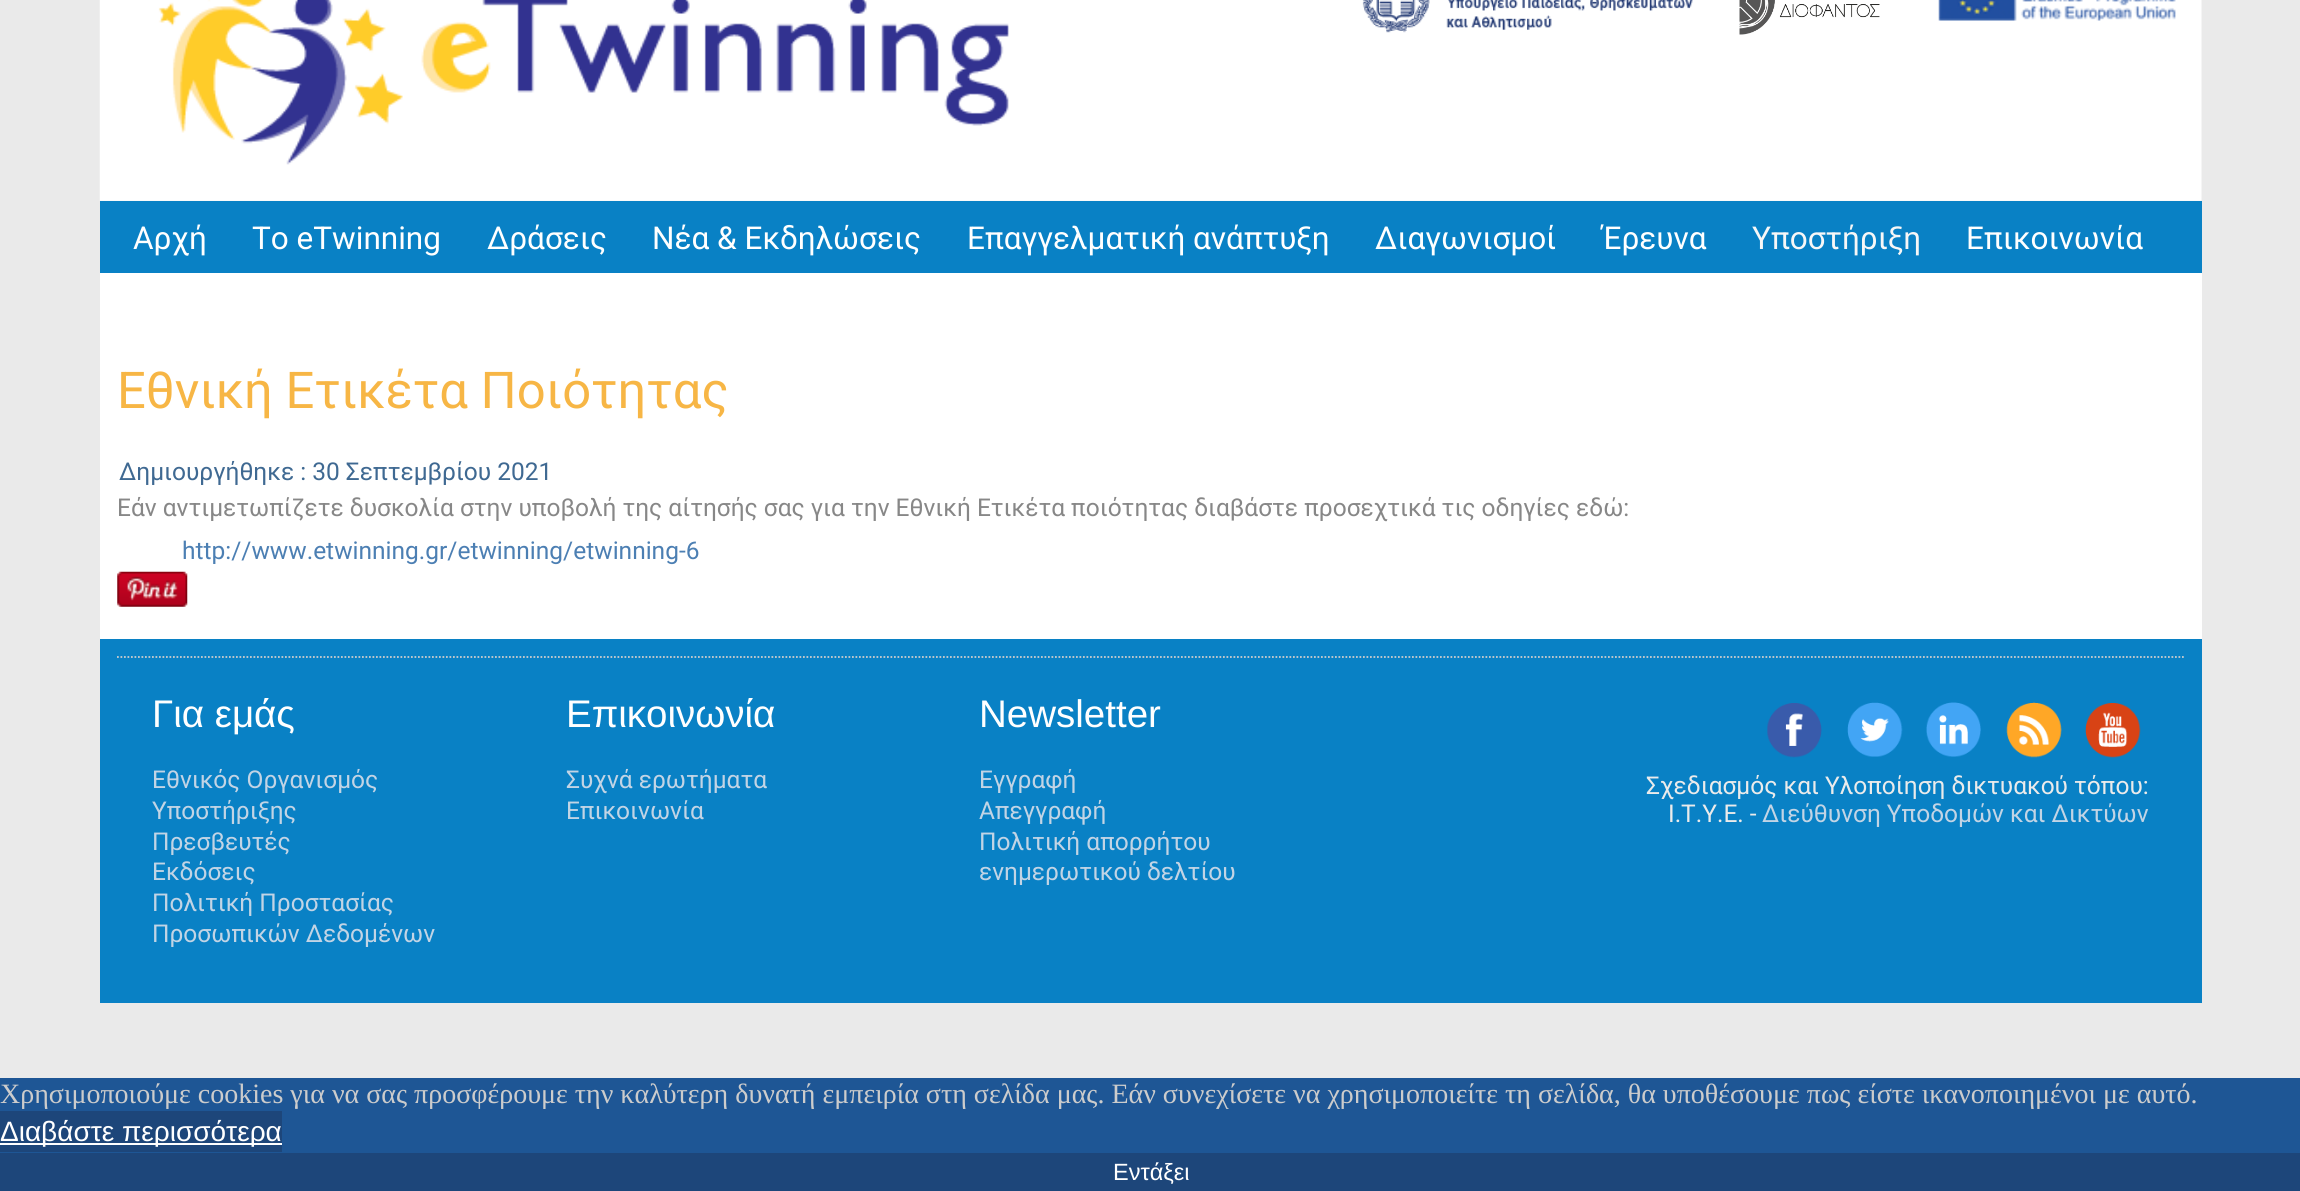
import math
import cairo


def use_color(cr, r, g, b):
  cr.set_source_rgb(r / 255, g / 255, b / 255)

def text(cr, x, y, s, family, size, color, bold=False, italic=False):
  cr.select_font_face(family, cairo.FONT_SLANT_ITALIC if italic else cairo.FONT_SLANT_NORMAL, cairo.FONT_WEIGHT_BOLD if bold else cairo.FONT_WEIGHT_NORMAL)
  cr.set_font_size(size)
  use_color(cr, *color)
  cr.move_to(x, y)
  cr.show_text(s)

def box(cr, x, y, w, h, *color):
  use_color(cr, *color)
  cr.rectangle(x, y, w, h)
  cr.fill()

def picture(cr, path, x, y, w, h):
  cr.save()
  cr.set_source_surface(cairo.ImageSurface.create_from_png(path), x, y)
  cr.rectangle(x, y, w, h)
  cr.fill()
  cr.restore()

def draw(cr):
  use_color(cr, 30, 86, 149)
  cr.paint()
  box(cr, 0, 0, 2300, 1078, 234, 234, 234)
  picture(cr, "img_01.png", 99, 0, 2103, 201)
  picture(cr, "img_02.png", 1362, 0, 331, 33)
  picture(cr, "img_03.png", 1739, 0, 141, 35)
  picture(cr, "img_04.png", 1938, 0, 238, 21)
  box(cr, 100, 273, 2102, 366, 255, 255, 255)
  box(cr, 100, 201, 2102, 72, 9, 129, 197)
  picture(cr, "img_05.png", 117, 571, 71, 36)
  box(cr, 100, 639, 2102, 364, 9, 129, 197)
  cr.new_path()
  cr.move_to(117, 657)
  cr.line_to(2184, 657)
  use_color(cr, 204, 204, 204)
  cr.set_line_width(1.8)
  cr.set_dash([1.75, 1.75])
  cr.stroke()
  picture(cr, "img_06.png", 1767, 703, 55, 55)
  picture(cr, "img_07.png", 1847, 702, 56, 55)
  picture(cr, "img_08.png", 1926, 702, 55, 55)
  picture(cr, "img_09.png", 2006, 702, 56, 56)
  picture(cr, "img_10.png", 2085, 703, 56, 55)
  box(cr, 0, 1111, 282, 41, 29, 70, 122)
  box(cr, 0, 1143, 282, 2, 255, 255, 255)
  box(cr, 0, 1153, 2300, 38, 29, 70, 122)
  text(cr, 133, 249, "Αρχή", "Roboto", 31.5, (255, 255, 255))
  text(cr, 252, 249, "Το eTwinning", "Roboto", 31.5, (255, 255, 255))
  text(cr, 487, 249, "Δράσεις", "Roboto", 31.5, (255, 255, 255))
  text(cr, 652, 249, "Νέα & Εκδηλώσεις", "Roboto", 31.5, (255, 255, 255))
  text(cr, 967, 249, "Επαγγελματική ανάπτυξη", "Roboto", 31.5, (255, 255, 255))
  text(cr, 1375, 249, "Διαγωνισμοί", "Roboto", 31.5, (255, 255, 255))
  text(cr, 1602, 249, "Έρευνα", "Roboto", 31.5, (255, 255, 255))
  text(cr, 1752, 249, "Υποστήριξη", "Roboto", 31.5, (247, 247, 247))
  text(cr, 1966, 249, "Επικοινωνία", "Roboto", 31.5, (255, 255, 255))
  text(cr, 117, 408, "Εθνική Ετικέτα Ποιότητας", "Roboto", 50.75, (247, 182, 69))
  text(cr, 119, 480, "Δημιουργήθηκε : 30 Σεπτεμβρίου 2021", "Roboto", 24.5, (63, 105, 146))
  text(cr, 117, 516, "Εάν αντιμετωπίζετε δυσκολία στην υποβολή της αίτησής σας για την Εθνική Ετικέτα ποιότητας διαβάστε προσεχτικά τις οδηγίες εδώ:", "Roboto", 24.5, (135, 135, 135))
  text(cr, 182, 559, "http://www.etwinning.gr/etwinning/etwinning-6", "Roboto", 24.5, (76, 127, 179))
  text(cr, 152, 727, "Για εμάς", "Liberation Sans", 38.5, (255, 255, 255))
  text(cr, 152, 788, "Εθνικός Οργανισμός", "Roboto", 24.5, (194, 212, 229))
  text(cr, 152, 819, "Υποστήριξης", "Roboto", 24.5, (194, 212, 229))
  text(cr, 152, 850, "Πρεσβευτές", "Roboto", 24.5, (194, 212, 229))
  text(cr, 152, 880, "Εκδόσεις", "Roboto", 24.5, (194, 212, 229))
  text(cr, 152, 911, "Πολιτική Προστασίας", "Roboto", 24.5, (194, 212, 229))
  text(cr, 152, 942, "Προσωπικών Δεδομένων", "Roboto", 24.5, (194, 212, 229))
  text(cr, 566, 727, "Επικοινωνία", "Liberation Sans", 38.5, (255, 255, 255))
  text(cr, 566, 788, "Συχνά ερωτήματα", "Roboto", 24.5, (194, 212, 229))
  text(cr, 566, 819, "Επικοινωνία", "Roboto", 24.5, (194, 212, 229))
  text(cr, 979, 727, "Newsletter", "Liberation Sans", 38.5, (255, 255, 255))
  text(cr, 979, 788, "Εγγραφή", "Roboto", 24.5, (194, 212, 229))
  text(cr, 979, 819, "Απεγγραφή", "Roboto", 24.5, (194, 212, 229))
  text(cr, 979, 850, "Πολιτική απορρήτου", "Roboto", 24.5, (194, 212, 229))
  text(cr, 979, 880, "ενημερωτικού δελτίου", "Roboto", 24.5, (194, 212, 229))
  text(cr, 1646, 794, "Σχεδιασμός και Υλοποίηση δικτυακού τόπου:", "Roboto", 24.5, (235, 235, 235))
  text(cr, 1668, 822, "Ι.Τ.Υ.Ε. -", "Roboto", 24.5, (235, 235, 235))
  text(cr, 1762, 822, "Διεύθυνση Υποδομών και Δικτύων", "Roboto", 24.5, (194, 212, 229))
  text(cr, 0, 1103, "Χρησιμοποιούμε cookies για να σας προσφέρουμε την καλύτερη δυνατή εμπειρία στη σελίδα μας. Εάν συνεχίσετε να χρησιμοποιείτε τη σελίδα, θα υποθέσουμε πως είστε ικανοποιημένοι με αυτό.", "Liberation Serif", 28, (204, 204, 204))
  text(cr, 0, 1141, "Διαβάστε περισσότερα", "Liberation Sans", 28, (255, 255, 255))
  text(cr, 1113, 1180, "Εντάξει", "Liberation Sans", 23.5, (255, 255, 255))


surface = cairo.ImageSurface(cairo.FORMAT_RGB24, 2300, 1191)
cr = cairo.Context(surface)
options = cairo.FontOptions()
options.set_hint_metrics(cairo.HINT_METRICS_OFF)
options.set_hint_style(cairo.HINT_STYLE_NONE)
cr.set_font_options(options)
cr.set_miter_limit(4)
draw(cr)
surface.write_to_png("out.png")
